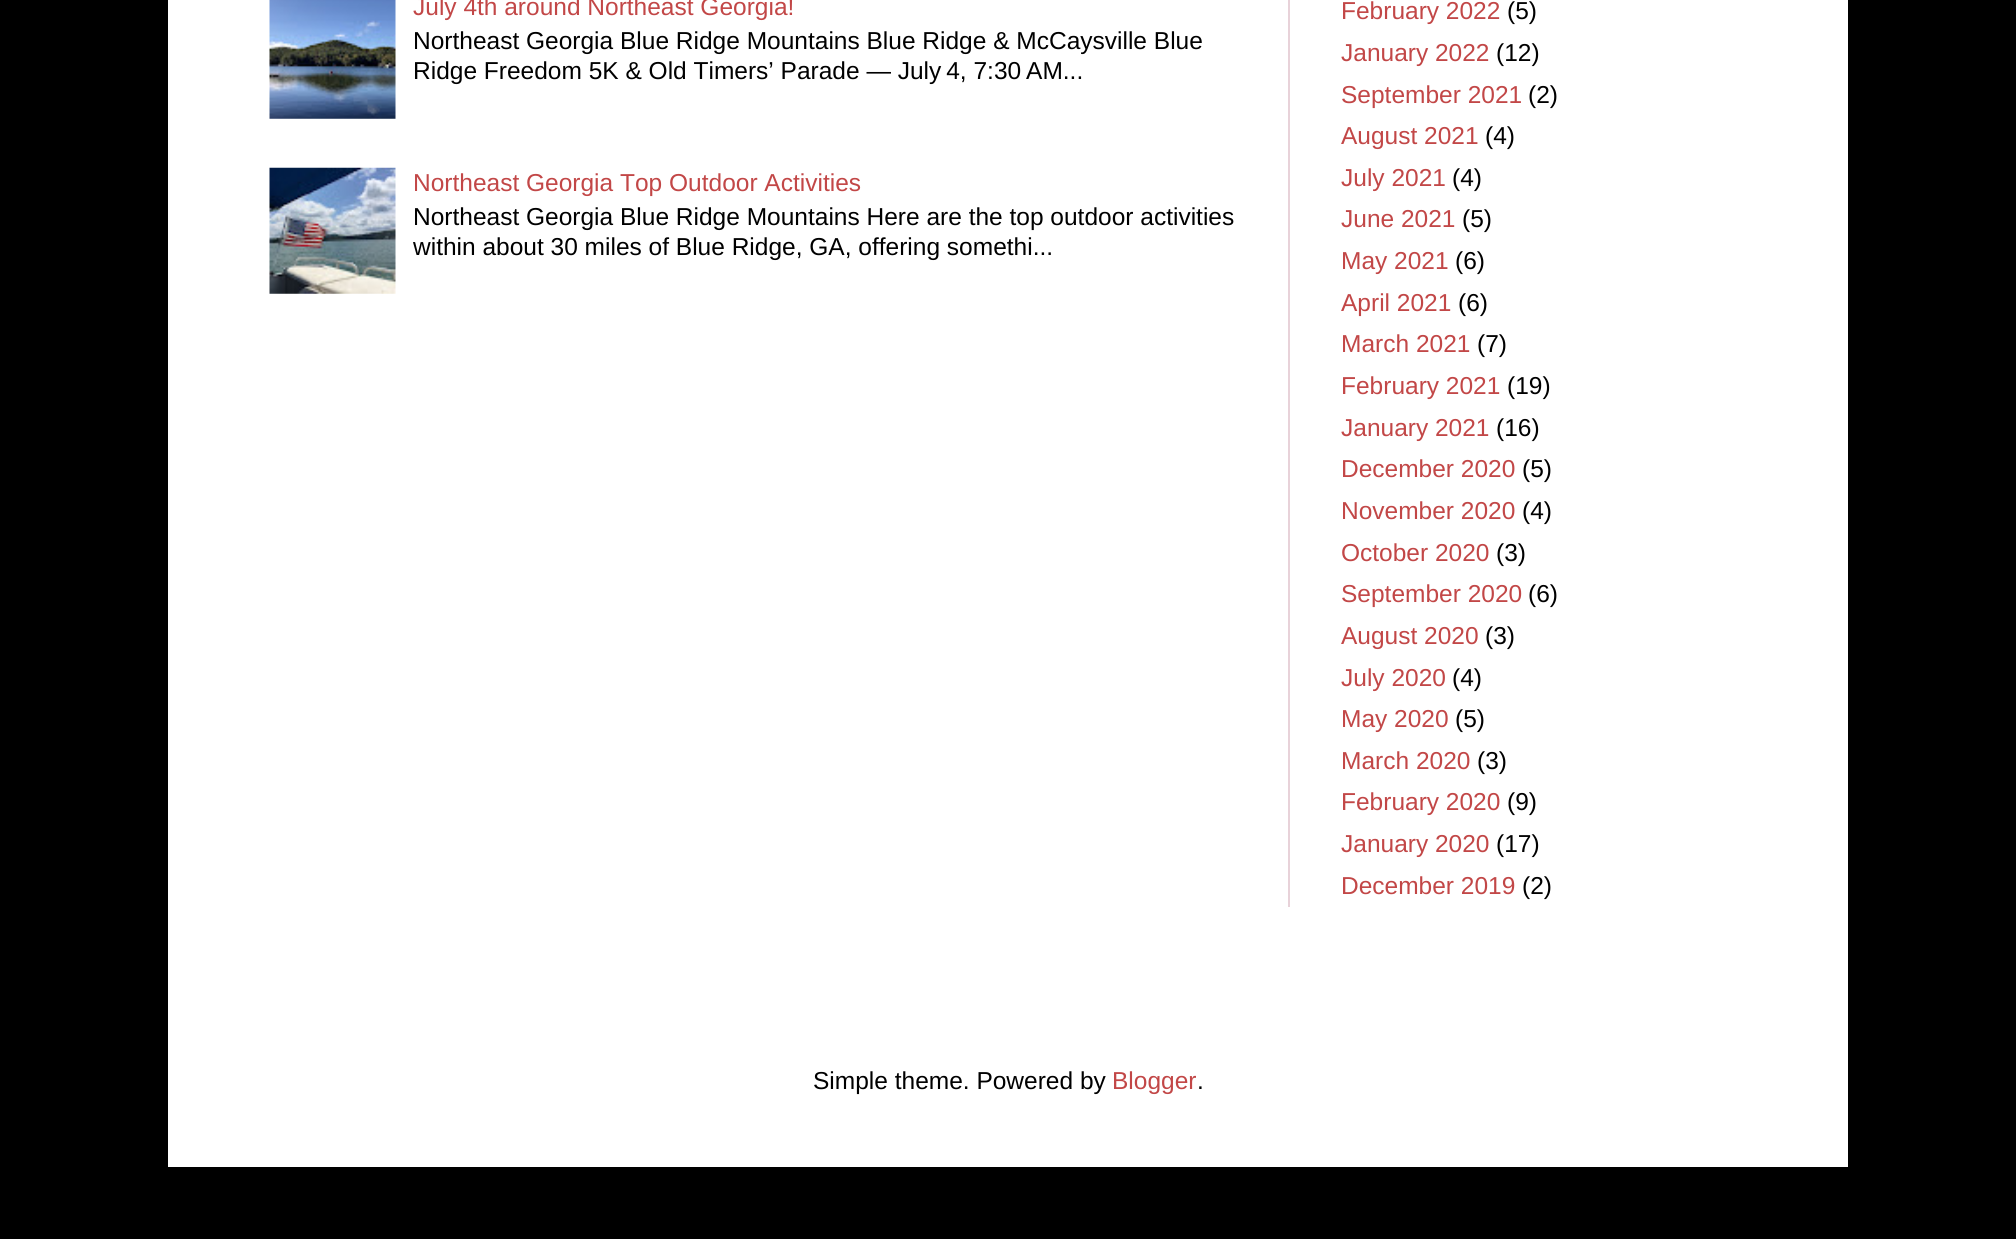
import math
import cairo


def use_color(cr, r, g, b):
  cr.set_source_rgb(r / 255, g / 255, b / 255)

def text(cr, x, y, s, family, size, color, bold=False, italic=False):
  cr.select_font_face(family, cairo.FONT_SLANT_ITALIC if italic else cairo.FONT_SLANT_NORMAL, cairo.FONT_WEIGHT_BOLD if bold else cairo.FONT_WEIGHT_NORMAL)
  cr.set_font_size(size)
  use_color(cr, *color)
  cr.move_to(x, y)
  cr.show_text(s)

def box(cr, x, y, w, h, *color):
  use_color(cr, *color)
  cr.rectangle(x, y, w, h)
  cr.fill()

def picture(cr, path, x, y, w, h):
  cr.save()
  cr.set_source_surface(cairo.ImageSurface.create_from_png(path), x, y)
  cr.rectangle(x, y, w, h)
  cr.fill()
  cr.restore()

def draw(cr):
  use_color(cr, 0, 0, 0)
  cr.paint()
  box(cr, 168, 0, 1680, 1167, 255, 255, 255)
  picture(cr, "img_01.png", 269, 0, 127, 119)
  picture(cr, "img_02.png", 269, 167, 127, 127)
  box(cr, 1288, 0, 2, 907, 232, 210, 217)
  text(cr, 413, 15, "July 4th around Northeast Georgia!", "Liberation Sans", 24.5, (194, 71, 71))
  text(cr, 413, 49, "Northeast Georgia Blue Ridge Mountains Blue Ridge & McCaysville Blue", "Liberation Sans", 24.5, (0, 0, 0))
  text(cr, 413, 79, "Ridge Freedom 5K & Old Timers’ Parade — July 4, 7:30 AM...", "Liberation Sans", 24.5, (0, 0, 0))
  text(cr, 413, 191, "Northeast Georgia Top Outdoor Activities", "Liberation Sans", 24.5, (194, 71, 71))
  text(cr, 413, 225, "Northeast Georgia Blue Ridge Mountains Here are the top outdoor activities", "Liberation Sans", 24.5, (0, 0, 0))
  text(cr, 413, 255, "within about 30 miles of Blue Ridge, GA, offering somethi...", "Liberation Sans", 24.5, (0, 0, 0))
  text(cr, 1341, 19, "February 2022", "Liberation Sans", 24.5, (194, 71, 71))
  text(cr, 1507, 19, "(5)", "Liberation Sans", 24.5, (0, 0, 0))
  text(cr, 1341, 61, "January 2022", "Liberation Sans", 24.5, (194, 71, 71))
  text(cr, 1496, 61, "(12)", "Liberation Sans", 24.5, (0, 0, 0))
  text(cr, 1341, 103, "September 2021", "Liberation Sans", 24.5, (194, 71, 71))
  text(cr, 1528, 103, "(2)", "Liberation Sans", 24.5, (0, 0, 0))
  text(cr, 1341, 144, "August 2021", "Liberation Sans", 24.5, (194, 71, 71))
  text(cr, 1485, 144, "(4)", "Liberation Sans", 24.5, (0, 0, 0))
  text(cr, 1341, 186, "July 2021", "Liberation Sans", 24.5, (194, 71, 71))
  text(cr, 1452, 186, "(4)", "Liberation Sans", 24.5, (0, 0, 0))
  text(cr, 1341, 227, "June 2021", "Liberation Sans", 24.5, (194, 71, 71))
  text(cr, 1462, 227, "(5)", "Liberation Sans", 24.5, (0, 0, 0))
  text(cr, 1341, 269, "May 2021", "Liberation Sans", 24.5, (194, 71, 71))
  text(cr, 1455, 269, "(6)", "Liberation Sans", 24.5, (0, 0, 0))
  text(cr, 1341, 311, "April 2021", "Liberation Sans", 24.5, (194, 71, 71))
  text(cr, 1458, 311, "(6)", "Liberation Sans", 24.5, (0, 0, 0))
  text(cr, 1341, 352, "March 2021", "Liberation Sans", 24.5, (194, 71, 71))
  text(cr, 1477, 352, "(7)", "Liberation Sans", 24.5, (0, 0, 0))
  text(cr, 1341, 394, "February 2021", "Liberation Sans", 24.5, (194, 71, 71))
  text(cr, 1507, 394, "(19)", "Liberation Sans", 24.5, (0, 0, 0))
  text(cr, 1341, 436, "January 2021", "Liberation Sans", 24.5, (194, 71, 71))
  text(cr, 1496, 436, "(16)", "Liberation Sans", 24.5, (0, 0, 0))
  text(cr, 1341, 477, "December 2020", "Liberation Sans", 24.5, (194, 71, 71))
  text(cr, 1522, 477, "(5)", "Liberation Sans", 24.5, (0, 0, 0))
  text(cr, 1341, 519, "November 2020", "Liberation Sans", 24.5, (194, 71, 71))
  text(cr, 1522, 519, "(4)", "Liberation Sans", 24.5, (0, 0, 0))
  text(cr, 1341, 561, "October 2020", "Liberation Sans", 24.5, (194, 71, 71))
  text(cr, 1496, 561, "(3)", "Liberation Sans", 24.5, (0, 0, 0))
  text(cr, 1341, 602, "September 2020", "Liberation Sans", 24.5, (194, 71, 71))
  text(cr, 1528, 602, "(6)", "Liberation Sans", 24.5, (0, 0, 0))
  text(cr, 1341, 644, "August 2020", "Liberation Sans", 24.5, (194, 71, 71))
  text(cr, 1485, 644, "(3)", "Liberation Sans", 24.5, (0, 0, 0))
  text(cr, 1341, 686, "July 2020", "Liberation Sans", 24.5, (194, 71, 71))
  text(cr, 1452, 686, "(4)", "Liberation Sans", 24.5, (0, 0, 0))
  text(cr, 1341, 727, "May 2020", "Liberation Sans", 24.5, (194, 71, 71))
  text(cr, 1455, 727, "(5)", "Liberation Sans", 24.5, (0, 0, 0))
  text(cr, 1341, 769, "March 2020", "Liberation Sans", 24.5, (194, 71, 71))
  text(cr, 1477, 769, "(3)", "Liberation Sans", 24.5, (0, 0, 0))
  text(cr, 1341, 810, "February 2020", "Liberation Sans", 24.5, (194, 71, 71))
  text(cr, 1507, 810, "(9)", "Liberation Sans", 24.5, (0, 0, 0))
  text(cr, 1341, 852, "January 2020", "Liberation Sans", 24.5, (194, 71, 71))
  text(cr, 1496, 852, "(17)", "Liberation Sans", 24.5, (0, 0, 0))
  text(cr, 1341, 894, "December 2019", "Liberation Sans", 24.5, (194, 71, 71))
  text(cr, 1522, 894, "(2)", "Liberation Sans", 24.5, (0, 0, 0))
  text(cr, 813, 1089, "Simple theme. Powered by", "Liberation Sans", 24.5, (0, 0, 0))
  text(cr, 1112, 1089, "Blogger", "Liberation Sans", 24.5, (194, 71, 71))
  text(cr, 1197, 1089, ".", "Liberation Sans", 24.5, (0, 0, 0))


surface = cairo.ImageSurface(cairo.FORMAT_RGB24, 2016, 1239)
cr = cairo.Context(surface)
options = cairo.FontOptions()
options.set_hint_metrics(cairo.HINT_METRICS_OFF)
options.set_hint_style(cairo.HINT_STYLE_NONE)
cr.set_font_options(options)
cr.set_miter_limit(4)
draw(cr)
surface.write_to_png("out.png")
